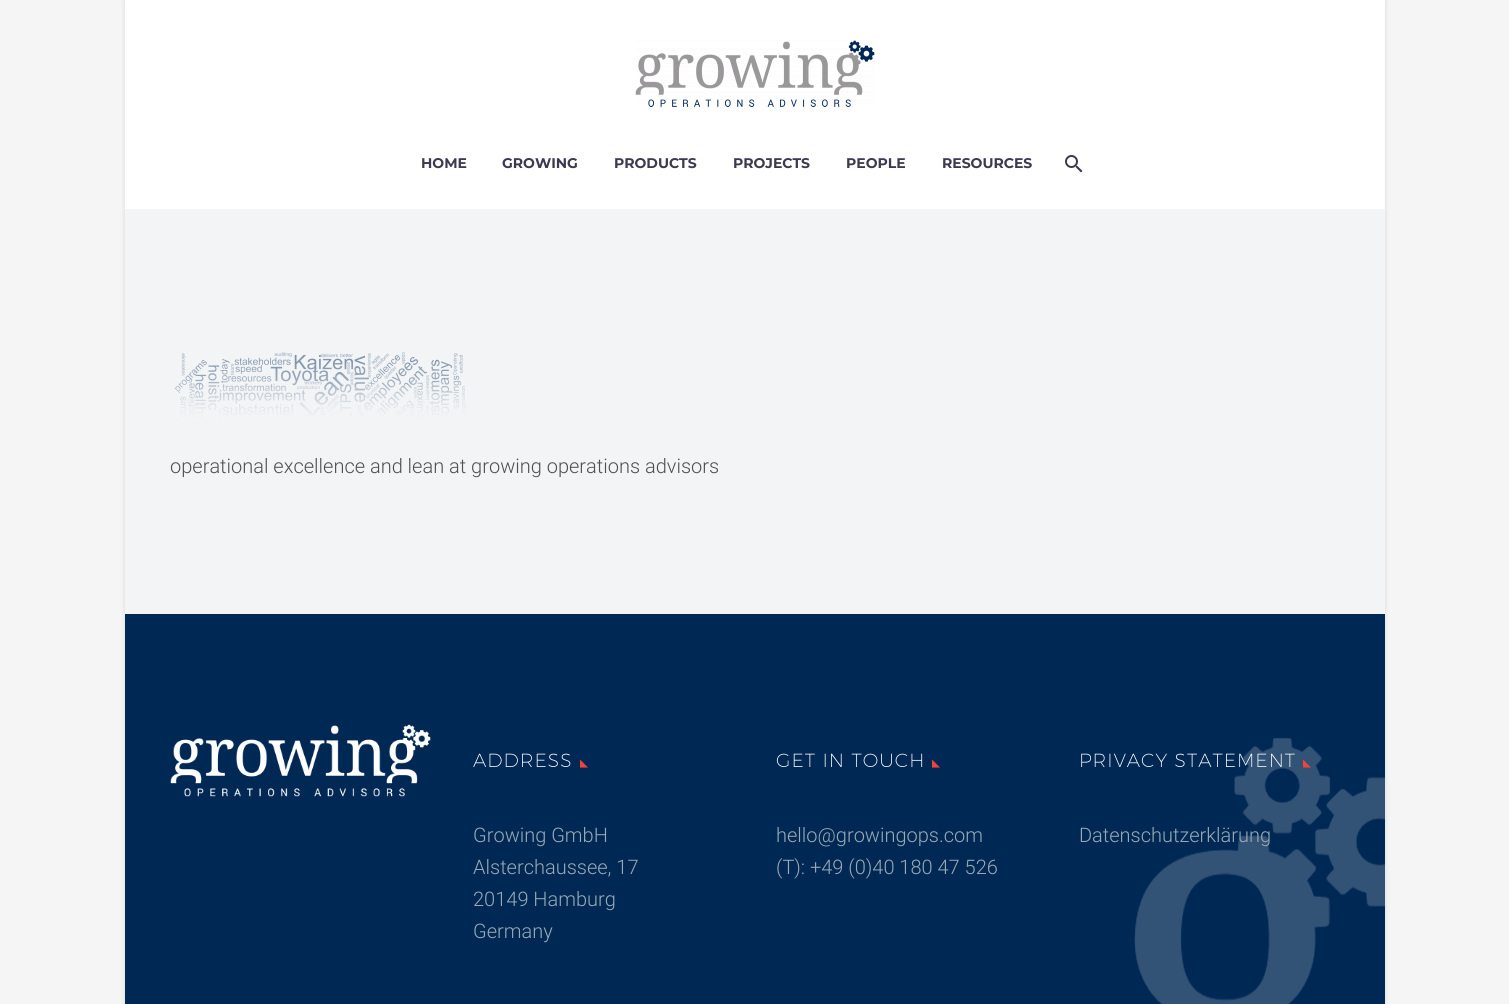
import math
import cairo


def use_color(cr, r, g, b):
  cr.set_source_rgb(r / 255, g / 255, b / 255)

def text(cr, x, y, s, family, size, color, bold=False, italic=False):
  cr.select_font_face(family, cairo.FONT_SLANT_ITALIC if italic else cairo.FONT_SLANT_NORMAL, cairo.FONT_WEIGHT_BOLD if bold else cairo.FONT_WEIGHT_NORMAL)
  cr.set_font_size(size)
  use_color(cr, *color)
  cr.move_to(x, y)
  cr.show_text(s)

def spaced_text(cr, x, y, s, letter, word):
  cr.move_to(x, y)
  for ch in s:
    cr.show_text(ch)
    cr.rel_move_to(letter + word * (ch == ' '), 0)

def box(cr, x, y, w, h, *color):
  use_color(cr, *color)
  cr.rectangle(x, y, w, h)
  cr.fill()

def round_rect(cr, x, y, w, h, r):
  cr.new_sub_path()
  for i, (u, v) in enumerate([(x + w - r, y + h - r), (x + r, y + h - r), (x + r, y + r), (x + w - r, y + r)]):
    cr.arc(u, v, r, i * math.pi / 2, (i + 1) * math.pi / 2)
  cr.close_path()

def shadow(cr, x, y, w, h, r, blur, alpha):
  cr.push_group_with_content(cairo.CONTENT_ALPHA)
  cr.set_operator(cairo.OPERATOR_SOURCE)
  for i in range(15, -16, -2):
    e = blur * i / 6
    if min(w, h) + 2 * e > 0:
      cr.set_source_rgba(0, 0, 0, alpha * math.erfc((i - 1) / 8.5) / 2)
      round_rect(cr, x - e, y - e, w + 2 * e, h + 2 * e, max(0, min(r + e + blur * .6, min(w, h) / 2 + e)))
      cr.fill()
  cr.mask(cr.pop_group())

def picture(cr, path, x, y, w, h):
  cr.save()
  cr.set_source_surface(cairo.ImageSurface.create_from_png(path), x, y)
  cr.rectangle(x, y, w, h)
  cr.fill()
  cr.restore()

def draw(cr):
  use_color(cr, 245, 245, 245)
  cr.paint()
  use_color(cr, 0, 0, 0)
  shadow(cr, 125, 0, 1260, 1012, 0, 2.5, 0.11)
  box(cr, 125, 0, 1260, 209, 255, 255, 255)
  picture(cr, "img_01.png", 635, 40, 240, 67)
  picture(cr, "img_02.png", 1065, 155, 18, 18)
  box(cr, 125, 209, 1260, 405, 242, 244, 246)
  picture(cr, "img_03.png", 174, 352, 292, 65)
  box(cr, 125, 614, 1260, 390, 0, 40, 85)
  picture(cr, "img_04.png", 1134, 738, 251, 266)
  picture(cr, "img_05.png", 170, 724, 261, 73)
  use_color(cr, 244, 67, 54)
  cr.new_path()
  cr.move_to(580, 759.5)
  cr.line_to(580, 767.5)
  cr.line_to(588, 767.5)
  cr.close_path()
  cr.fill()
  cr.new_path()
  cr.move_to(932, 759.5)
  cr.line_to(932, 767.5)
  cr.line_to(940, 767.5)
  cr.close_path()
  cr.fill()
  cr.new_path()
  cr.move_to(1303, 759.5)
  cr.line_to(1303, 767.5)
  cr.line_to(1311, 767.5)
  cr.close_path()
  cr.fill()
  text(cr, 421, 168, "HOME", "Montserrat", 14, (60, 57, 80), bold=True)
  text(cr, 502, 168, "GROWING", "Montserrat", 14, (60, 57, 80), bold=True)
  text(cr, 614, 168, "PRODUCTS", "Montserrat", 14, (60, 57, 80), bold=True)
  text(cr, 733, 168, "PROJECTS", "Montserrat", 14, (60, 57, 80), bold=True)
  text(cr, 846, 168, "PEOPLE", "Montserrat", 14, (60, 57, 80), bold=True)
  text(cr, 942, 168, "RESOURCES", "Montserrat", 14, (60, 57, 80), bold=True)
  text(cr, 170, 473, "operational excellence and lean at growing operations advisors", "Roboto Light", 20, (80, 80, 80))
  cr.select_font_face("Montserrat ExtraLight")
  cr.set_font_size(19)
  use_color(cr, 254, 255, 255)
  spaced_text(cr, 473, 767, "ADDRESS", 1, 0)
  text(cr, 473, 842, "Growing GmbH", "Roboto Light", 20, (153, 169, 181))
  text(cr, 473, 874, "Alsterchaussee, 17", "Roboto Light", 20, (153, 169, 181))
  text(cr, 473, 906, "20149 Hamburg", "Roboto Light", 20, (153, 169, 181))
  text(cr, 473, 938, "Germany", "Roboto Light", 20, (153, 169, 181))
  cr.select_font_face("Montserrat ExtraLight")
  cr.set_font_size(19)
  use_color(cr, 254, 255, 255)
  spaced_text(cr, 776, 767, "GET IN TOUCH", 1, 0)
  text(cr, 776, 842, "hello@growingops.com", "Roboto Light", 20, (153, 169, 181))
  text(cr, 776, 874, "(T): +49 (0)40 180 47 526", "Roboto Light", 20, (153, 169, 181))
  cr.select_font_face("Montserrat ExtraLight")
  cr.set_font_size(19)
  use_color(cr, 254, 255, 255)
  spaced_text(cr, 1079, 767, "PRIVACY STATEMENT", 1, 0)
  text(cr, 1079, 842, "Datenschutzerklärung", "Roboto Light", 20, (153, 169, 181))


surface = cairo.ImageSurface(cairo.FORMAT_RGB24, 1509, 1004)
cr = cairo.Context(surface)
options = cairo.FontOptions()
options.set_hint_metrics(cairo.HINT_METRICS_OFF)
options.set_hint_style(cairo.HINT_STYLE_NONE)
cr.set_font_options(options)
cr.set_miter_limit(4)
draw(cr)
surface.write_to_png("out.png")
